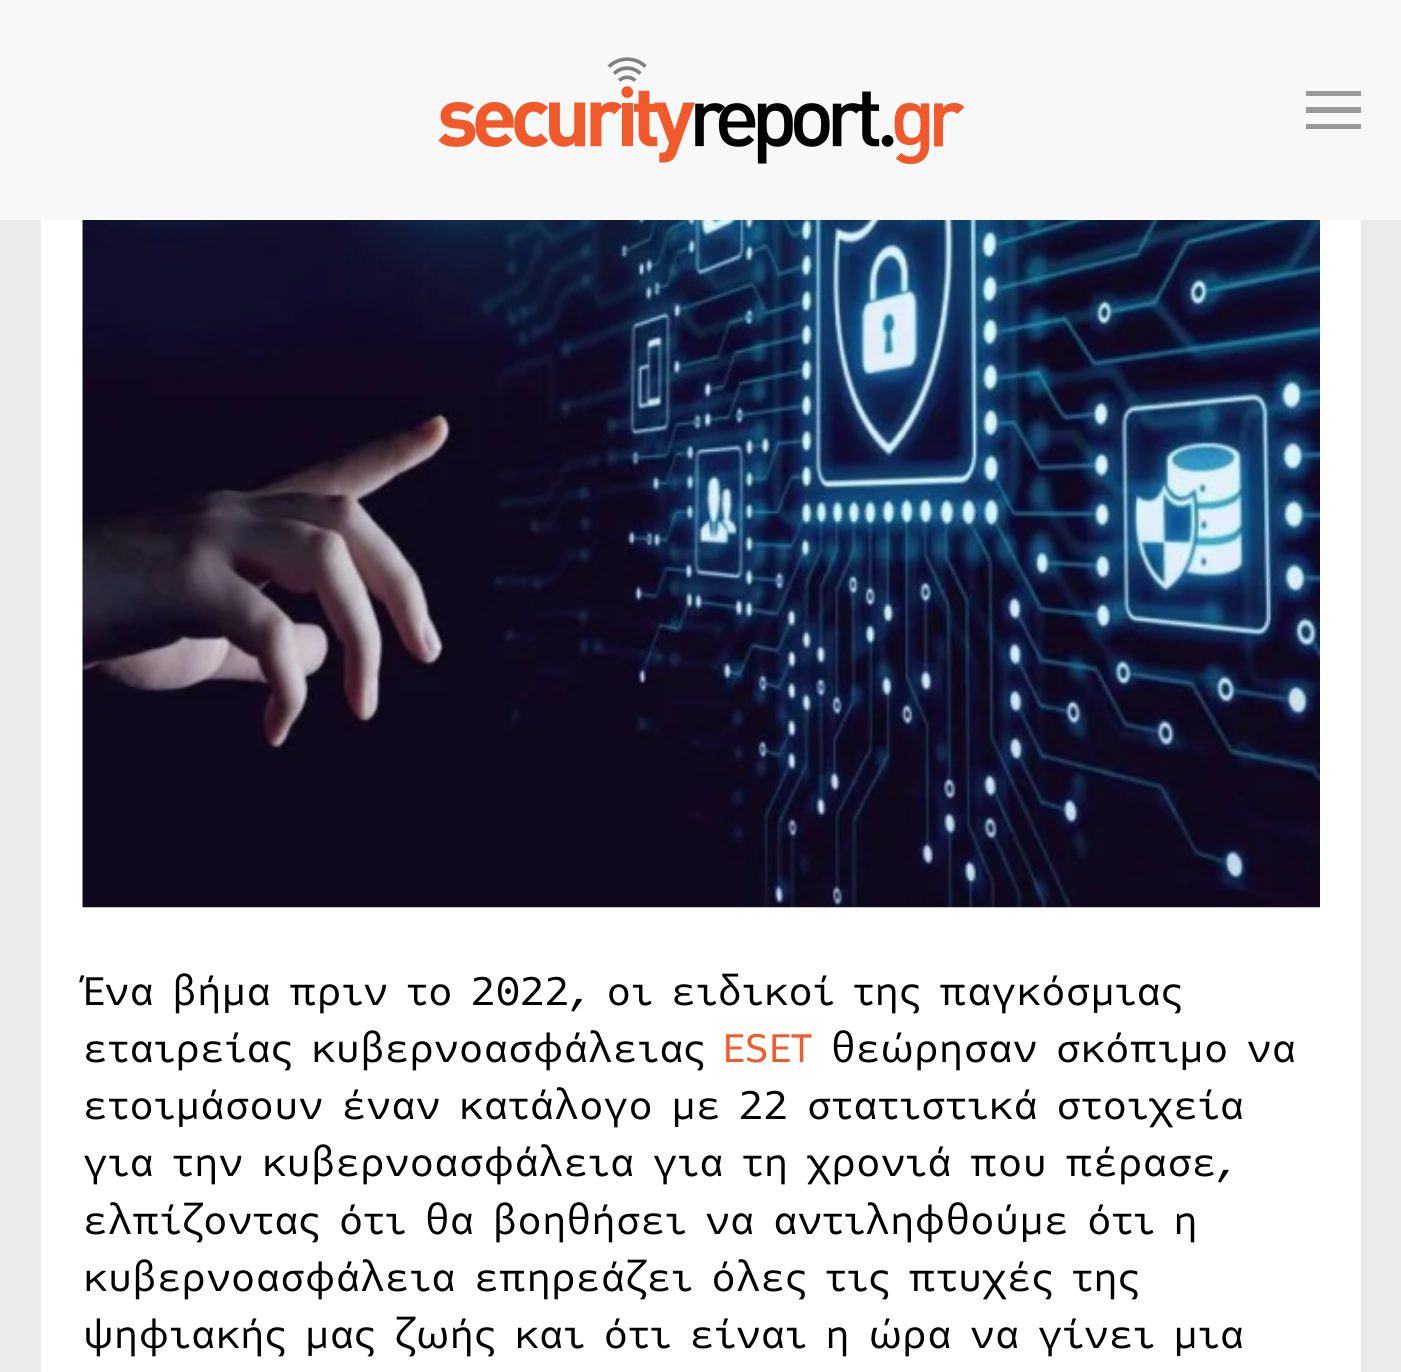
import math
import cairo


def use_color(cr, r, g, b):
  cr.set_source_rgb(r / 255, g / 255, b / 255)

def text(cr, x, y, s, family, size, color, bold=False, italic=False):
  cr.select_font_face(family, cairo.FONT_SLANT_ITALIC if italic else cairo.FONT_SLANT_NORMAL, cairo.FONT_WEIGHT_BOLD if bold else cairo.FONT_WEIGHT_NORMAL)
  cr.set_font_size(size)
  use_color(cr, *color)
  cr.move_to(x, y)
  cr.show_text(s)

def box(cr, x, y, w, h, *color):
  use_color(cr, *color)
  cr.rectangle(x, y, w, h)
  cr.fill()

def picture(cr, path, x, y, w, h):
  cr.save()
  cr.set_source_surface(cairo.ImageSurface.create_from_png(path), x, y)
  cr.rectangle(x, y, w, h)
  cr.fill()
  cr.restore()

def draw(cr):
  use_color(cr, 235, 235, 236)
  cr.paint()
  box(cr, 0, 0, 1401, 220, 248, 248, 248)
  picture(cr, "img_01.png", 438, 57, 527, 107)
  box(cr, 1306, 91, 55, 5, 153, 153, 153)
  box(cr, 1306, 107, 55, 6, 153, 153, 153)
  box(cr, 1306, 124, 55, 5, 153, 153, 153)
  box(cr, 41, 220, 1320, 1152, 255, 255, 255)
  picture(cr, "img_02.png", 82, 220, 1238, 688)
  text(cr, 83, 1005, "Ένα βήμα πριν το 2022, οι ειδικοί της παγκόσμιας", "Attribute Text", 44, (0, 0, 0))
  text(cr, 83, 1062, "εταιρείας κυβερνοασφάλειας", "Attribute Text", 44, (0, 0, 0))
  text(cr, 723, 1062, "ESET", "Attribute Text", 44, (241, 90, 41))
  text(cr, 831, 1062, "θεώρησαν σκόπιμο να", "Attribute Text", 44, (0, 0, 0))
  text(cr, 83, 1119, "ετοιμάσουν έναν κατάλογο με 22 στατιστικά στοιχεία", "Attribute Text", 44, (0, 0, 0))
  text(cr, 83, 1176, "για την κυβερνοασφάλεια για τη χρονιά που πέρασε,", "Attribute Text", 44, (0, 0, 0))
  text(cr, 83, 1234, "ελπίζοντας ότι θα βοηθήσει να αντιληφθούμε ότι η", "Attribute Text", 44, (0, 0, 0))
  text(cr, 83, 1291, "κυβερνοασφάλεια επηρεάζει όλες τις πτυχές της", "Attribute Text", 44, (0, 0, 0))
  text(cr, 83, 1348, "ψηφιακής μας ζωής και ότι είναι η ώρα να γίνει μια", "Attribute Text", 44, (0, 0, 0))


surface = cairo.ImageSurface(cairo.FORMAT_RGB24, 1401, 1372)
cr = cairo.Context(surface)
options = cairo.FontOptions()
options.set_hint_metrics(cairo.HINT_METRICS_OFF)
options.set_hint_style(cairo.HINT_STYLE_NONE)
cr.set_font_options(options)
cr.set_miter_limit(4)
draw(cr)
surface.write_to_png("out.png")
